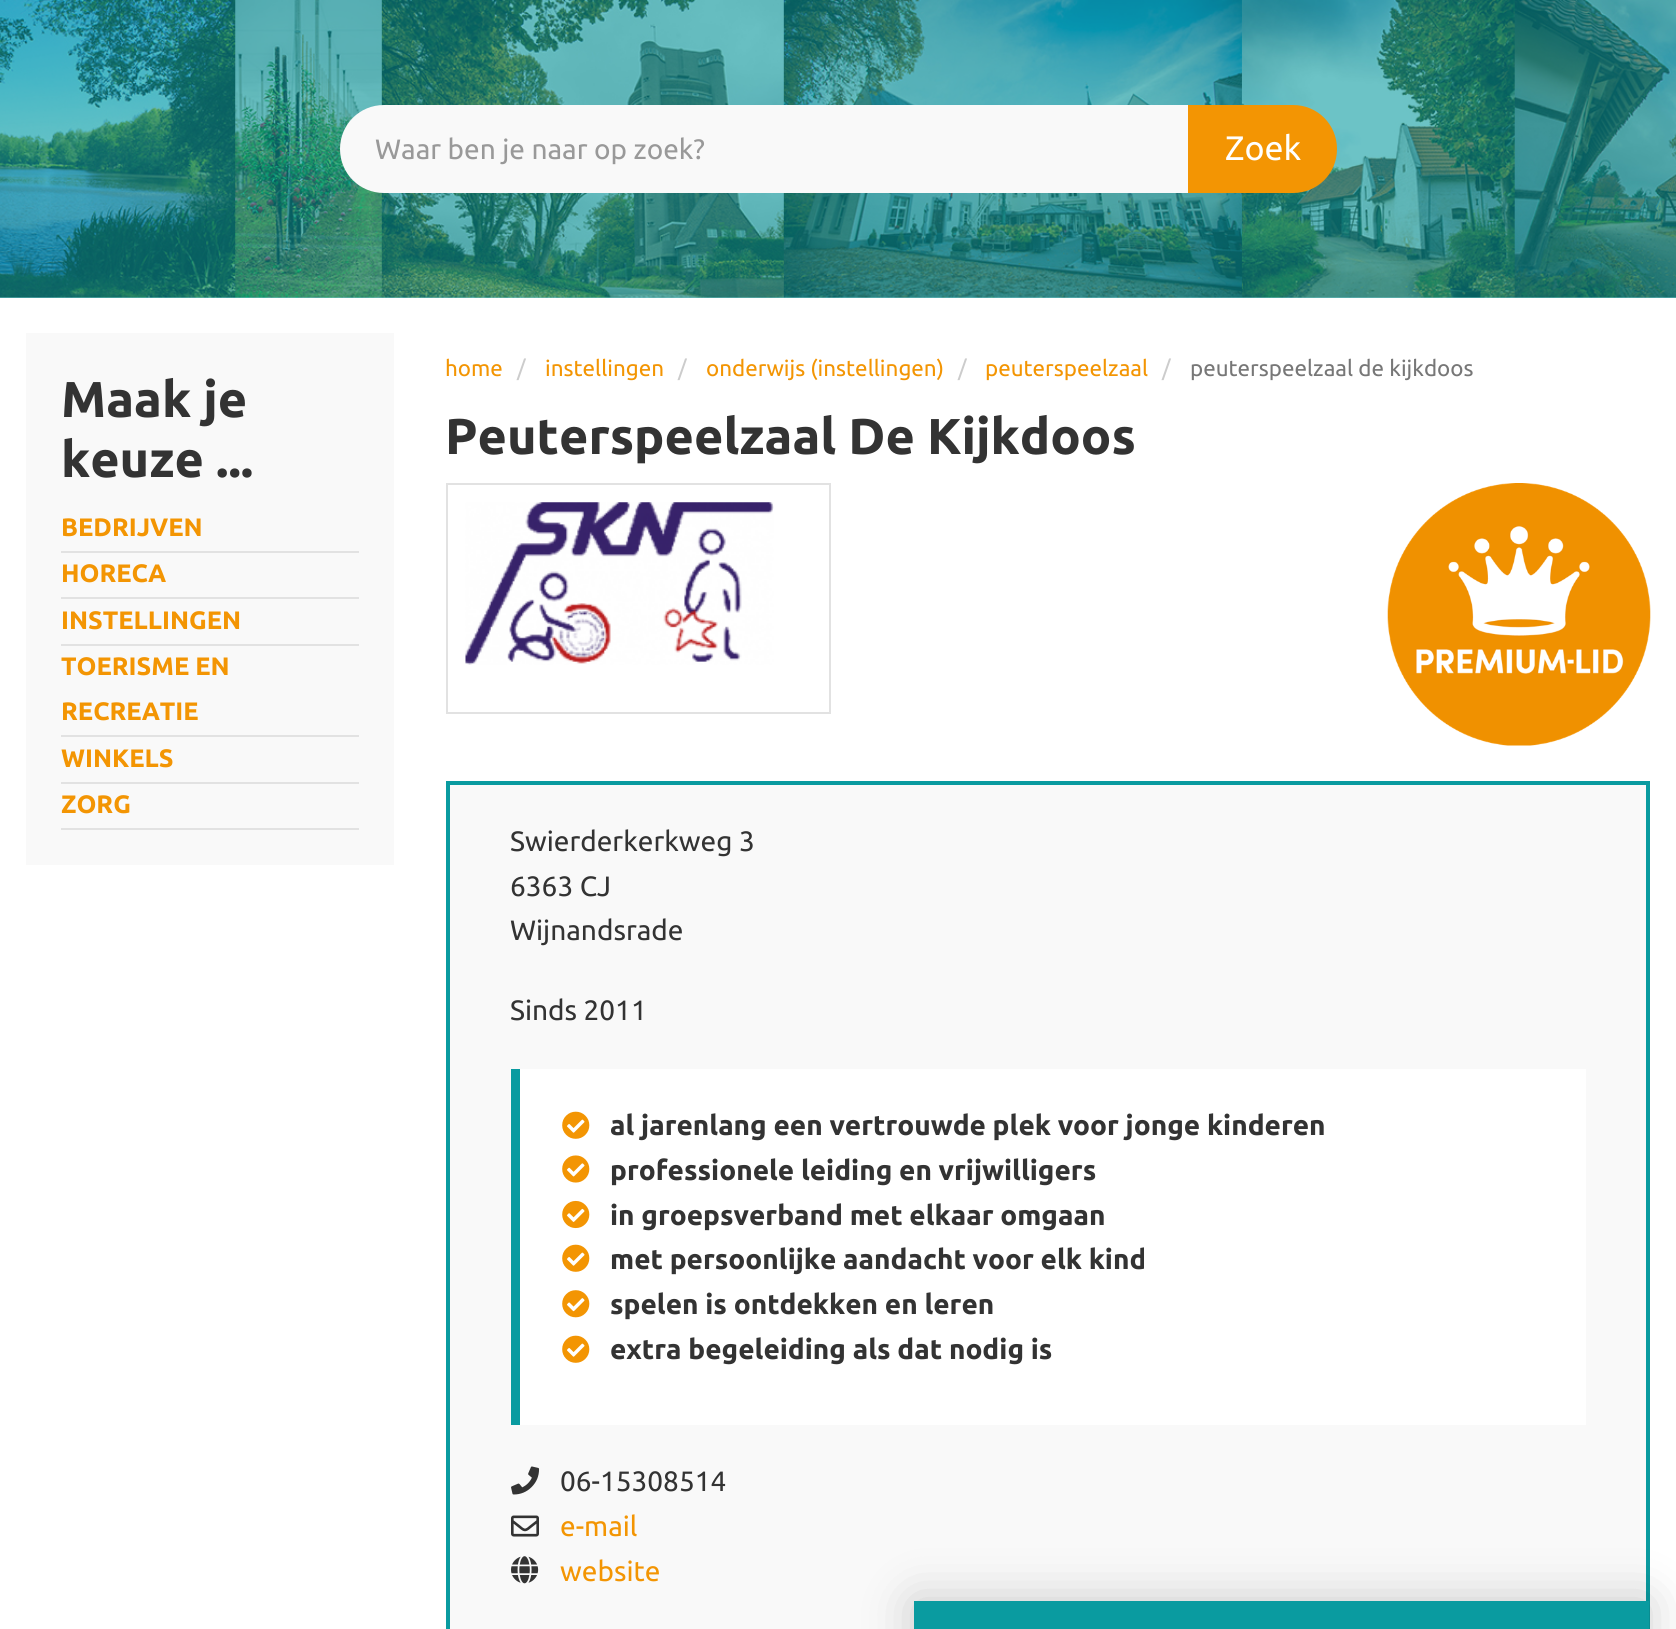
import math
import cairo


def use_color(cr, r, g, b):
  cr.set_source_rgb(r / 255, g / 255, b / 255)

def text(cr, x, y, s, family, size, color, bold=False, italic=False):
  cr.select_font_face(family, cairo.FONT_SLANT_ITALIC if italic else cairo.FONT_SLANT_NORMAL, cairo.FONT_WEIGHT_BOLD if bold else cairo.FONT_WEIGHT_NORMAL)
  cr.set_font_size(size)
  use_color(cr, *color)
  cr.move_to(x, y)
  cr.show_text(s)

def box(cr, x, y, w, h, *color):
  use_color(cr, *color)
  cr.rectangle(x, y, w, h)
  cr.fill()

def round_rect(cr, x, y, w, h, r):
  cr.new_sub_path()
  for i, (u, v) in enumerate([(x + w - r, y + h - r), (x + r, y + h - r), (x + r, y + r), (x + w - r, y + r)]):
    cr.arc(u, v, r, i * math.pi / 2, (i + 1) * math.pi / 2)
  cr.close_path()

def shadow(cr, x, y, w, h, r, blur, alpha):
  cr.push_group_with_content(cairo.CONTENT_ALPHA)
  cr.set_operator(cairo.OPERATOR_SOURCE)
  for i in range(15, -16, -2):
    e = blur * i / 6
    if min(w, h) + 2 * e > 0:
      cr.set_source_rgba(0, 0, 0, alpha * math.erfc((i - 1) / 8.5) / 2)
      round_rect(cr, x - e, y - e, w + 2 * e, h + 2 * e, max(0, min(r + e + blur * .6, min(w, h) / 2 + e)))
      cr.fill()
  cr.mask(cr.pop_group())

def picture(cr, path, x, y, w, h):
  cr.save()
  cr.set_source_surface(cairo.ImageSurface.create_from_png(path), x, y)
  cr.rectangle(x, y, w, h)
  cr.fill()
  cr.restore()

def draw(cr):
  use_color(cr, 255, 255, 255)
  cr.paint()
  box(cr, 0, 297, 1676, 1, 108, 195, 198)
  picture(cr, "img_01.png", 0, 0, 1676, 298)
  use_color(cr, 249, 249, 249)
  cr.new_path()
  cr.move_to(384, 105)
  cr.line_to(1188, 105)
  cr.line_to(1188, 193)
  cr.line_to(384, 193)
  cr.curve_to(359.5, 193, 340, 173.5, 340, 149)
  cr.curve_to(340, 124.5, 359.5, 105, 384, 105)
  cr.close_path()
  cr.fill()
  use_color(cr, 243, 149, 3)
  cr.new_path()
  cr.move_to(1188, 105)
  cr.line_to(1293, 105)
  cr.curve_to(1317.5, 105, 1337, 124.5, 1337, 149)
  cr.curve_to(1337, 173.5, 1317.5, 193, 1293, 193)
  cr.line_to(1188, 193)
  cr.close_path()
  cr.fill()
  box(cr, 26, 333, 368, 532, 249, 249, 249)
  box(cr, 61, 551, 298, 2, 226, 226, 226)
  box(cr, 61, 597, 298, 2, 226, 226, 226)
  box(cr, 61, 644, 298, 2, 226, 226, 226)
  box(cr, 61, 735, 298, 2, 226, 226, 226)
  box(cr, 61, 782, 298, 2, 226, 226, 226)
  box(cr, 61, 828, 298, 2, 226, 226, 226)
  cr.rectangle(447, 484, 383, 229)
  cr.stroke()
  picture(cr, "img_02.png", 465, 502, 309, 163)
  picture(cr, "img_03.png", 1387, 483, 264, 263)
  use_color(cr, 249, 249, 249)
  cr.rectangle(448, 783, 1200, 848)
  cr.fill_preserve()
  use_color(cr, 10, 155, 160)
  cr.set_line_width(4)
  cr.stroke()
  box(cr, 520, 1069, 1066, 356, 255, 255, 255)
  box(cr, 511, 1069, 9, 356, 10, 155, 160)
  picture(cr, "img_04.png", 562, 1111, 28, 28)
  picture(cr, "img_05.png", 562, 1155, 28, 28)
  picture(cr, "img_06.png", 562, 1200, 28, 29)
  picture(cr, "img_04.png", 562, 1244, 28, 28)
  picture(cr, "img_07.png", 562, 1290, 28, 28)
  picture(cr, "img_04.png", 562, 1335, 28, 28)
  picture(cr, "img_08.png", 511, 1466, 29, 29)
  picture(cr, "img_09.png", 511, 1515, 28, 22)
  picture(cr, "img_10.png", 511, 1556, 28, 28)
  use_color(cr, 0, 0, 0)
  shadow(cr, 914, 1601, 735, 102, 0, 24.5, 0.2)
  box(cr, 914, 1601, 735, 28, 10, 155, 160)
  text(cr, 375, 159, "Waar ben je naar op zoek?", "Ubuntu", 28, (153, 153, 153))
  text(cr, 1225, 160, "Zoek", "Ubuntu", 34, (255, 255, 255))
  text(cr, 61, 417, "Maak je", "Ubuntu", 50.4, (51, 51, 51), bold=True)
  text(cr, 61, 477, "keuze ...", "Ubuntu", 50.4, (51, 51, 51), bold=True)
  text(cr, 61, 536, "BEDRIJVEN", "Ubuntu", 25.25, (243, 149, 3), bold=True)
  text(cr, 61, 582, "HORECA", "Ubuntu", 25.25, (243, 149, 3), bold=True)
  text(cr, 61, 629, "INSTELLINGEN", "Ubuntu", 25.25, (243, 149, 3), bold=True)
  text(cr, 61, 675, "TOERISME EN", "Ubuntu", 25.25, (243, 149, 3), bold=True)
  text(cr, 61, 720, "RECREATIE", "Ubuntu", 25.25, (243, 149, 3), bold=True)
  text(cr, 61, 767, "WINKELS", "Ubuntu", 25.25, (243, 149, 3), bold=True)
  text(cr, 61, 813, "ZORG", "Ubuntu", 25.25, (243, 149, 3), bold=True)
  text(cr, 445, 376, "home", "Ubuntu", 22.4, (243, 149, 3))
  text(cr, 517, 376, "/", "Ubuntu", 22.4, (204, 204, 204))
  text(cr, 545, 376, "instellingen", "Ubuntu", 22.4, (243, 149, 3))
  text(cr, 678, 376, "/", "Ubuntu", 22.4, (204, 204, 204))
  text(cr, 706, 376, "onderwijs (instellingen)", "Ubuntu", 22.4, (243, 149, 3))
  text(cr, 958, 376, "/", "Ubuntu", 22.4, (204, 204, 204))
  text(cr, 985, 376, "peuterspeelzaal", "Ubuntu", 22.4, (243, 149, 3))
  text(cr, 1162, 376, "/", "Ubuntu", 22.4, (204, 204, 204))
  text(cr, 1190, 376, "peuterspeelzaal de kijkdoos", "Ubuntu", 22.4, (119, 119, 119))
  text(cr, 445, 454, "Peuterspeelzaal De Kijkdoos", "Ubuntu", 50.4, (51, 51, 51), bold=True)
  text(cr, 510, 851, "Swierderkerkweg 3", "Ubuntu", 28, (51, 51, 51))
  text(cr, 510, 896, "6363 CJ", "Ubuntu", 28, (51, 51, 51))
  text(cr, 510, 940, "Wijnandsrade", "Ubuntu", 28, (51, 51, 51))
  text(cr, 510, 1020, "Sinds 2011", "Ubuntu", 28, (51, 51, 51))
  text(cr, 610, 1135, "al jarenlang een vertrouwde plek voor jonge kinderen", "Ubuntu", 28, (51, 51, 51), bold=True)
  text(cr, 610, 1180, "professionele leiding en vrijwilligers", "Ubuntu", 28, (51, 51, 51), bold=True)
  text(cr, 610, 1225, "in groepsverband met elkaar omgaan", "Ubuntu", 28, (51, 51, 51), bold=True)
  text(cr, 610, 1269, "met persoonlijke aandacht voor elk kind", "Ubuntu", 28, (51, 51, 51), bold=True)
  text(cr, 610, 1314, "spelen is ontdekken en leren", "Ubuntu", 28, (51, 51, 51), bold=True)
  text(cr, 610, 1359, "extra begeleiding als dat nodig is", "Ubuntu", 28, (51, 51, 51), bold=True)
  text(cr, 560, 1491, "06-15308514", "Ubuntu", 28, (51, 51, 51))
  text(cr, 560, 1536, "e-mail", "Ubuntu", 28, (243, 149, 3))
  text(cr, 560, 1581, "website", "Ubuntu", 28, (243, 149, 3))


surface = cairo.ImageSurface(cairo.FORMAT_RGB24, 1676, 1629)
cr = cairo.Context(surface)
options = cairo.FontOptions()
options.set_hint_metrics(cairo.HINT_METRICS_OFF)
options.set_hint_style(cairo.HINT_STYLE_NONE)
cr.set_font_options(options)
cr.set_miter_limit(4)
draw(cr)
surface.write_to_png("out.png")
